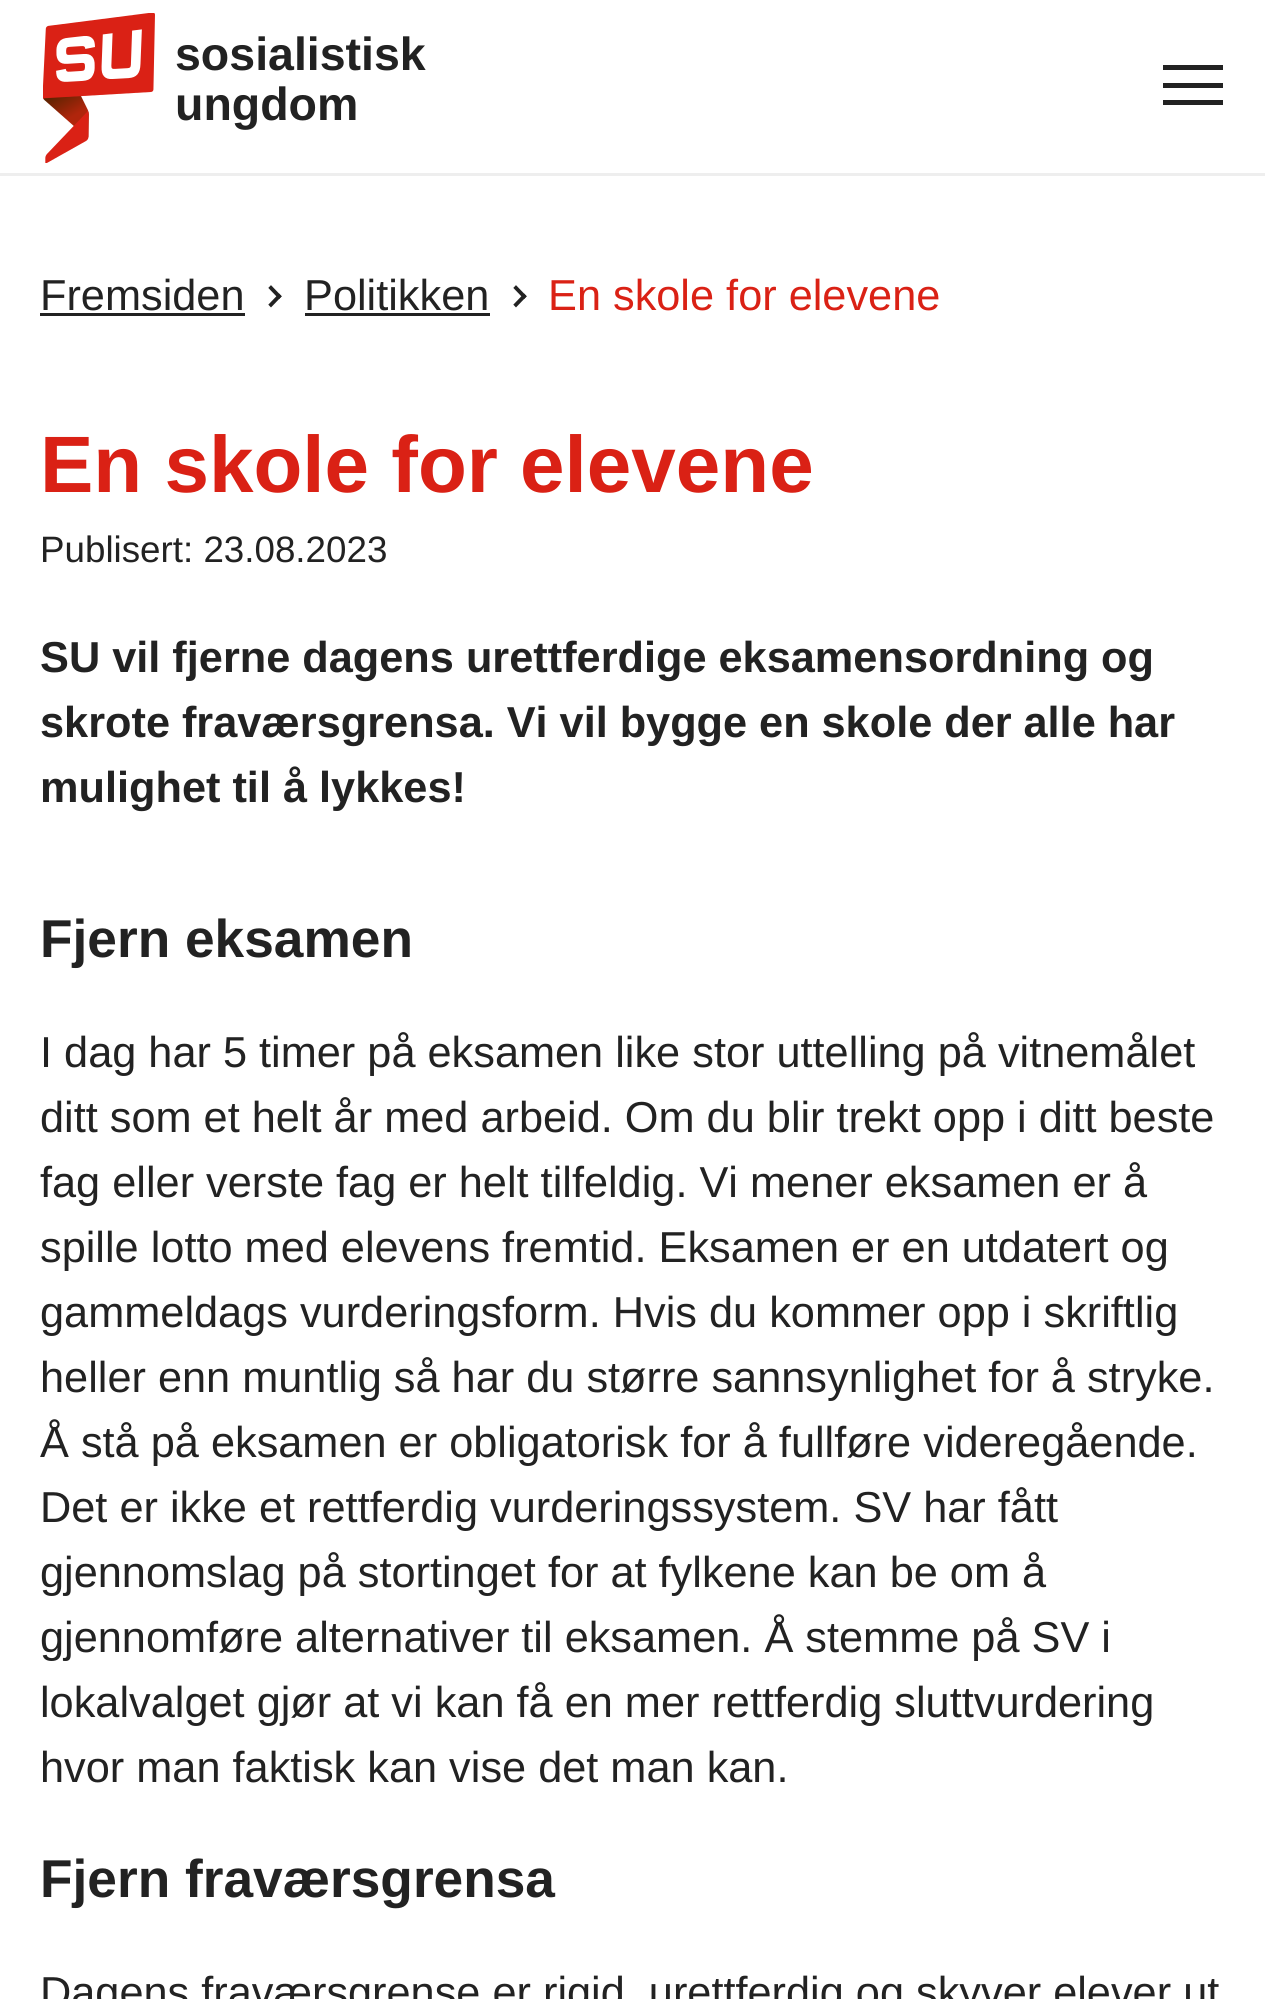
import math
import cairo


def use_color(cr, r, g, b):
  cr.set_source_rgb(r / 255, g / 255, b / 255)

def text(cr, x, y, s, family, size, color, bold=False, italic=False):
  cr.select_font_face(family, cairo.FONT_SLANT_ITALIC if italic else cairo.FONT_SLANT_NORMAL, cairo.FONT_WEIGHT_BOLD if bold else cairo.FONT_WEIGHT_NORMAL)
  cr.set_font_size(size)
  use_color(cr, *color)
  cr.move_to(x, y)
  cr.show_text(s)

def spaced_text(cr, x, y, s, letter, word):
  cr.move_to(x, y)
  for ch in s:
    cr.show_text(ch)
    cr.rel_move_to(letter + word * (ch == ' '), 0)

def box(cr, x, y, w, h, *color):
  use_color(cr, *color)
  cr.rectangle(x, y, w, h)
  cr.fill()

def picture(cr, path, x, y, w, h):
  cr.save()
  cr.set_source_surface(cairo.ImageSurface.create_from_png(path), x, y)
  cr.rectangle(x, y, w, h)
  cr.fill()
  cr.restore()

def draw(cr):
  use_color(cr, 255, 255, 255)
  cr.paint()
  box(cr, 0, 173, 1265, 3, 238, 238, 238)
  picture(cr, "img_01.png", 43, 13, 112, 150)
  box(cr, 1163, 65, 60, 5, 34, 34, 34)
  box(cr, 1163, 83, 60, 5, 34, 34, 34)
  box(cr, 1163, 100, 60, 5, 34, 34, 34)
  box(cr, 40, 313, 205, 3, 34, 34, 34)
  picture(cr, "img_02.png", 268, 285, 14, 23)
  box(cr, 305, 313, 185, 3, 34, 34, 34)
  picture(cr, "img_02.png", 513, 285, 14, 23)
  text(cr, 175, 70, "sosialistisk", "Liberation Sans", 46.5, (34, 34, 34), bold=True)
  text(cr, 175, 120, "ungdom", "Liberation Sans", 46.5, (34, 34, 34), bold=True)
  text(cr, 40, 310, "Fremsiden", "Liberation Sans", 43.3, (34, 34, 34))
  text(cr, 304, 310, "Politikken", "Liberation Sans", 43.3, (34, 34, 34))
  text(cr, 548, 310, "En skole for elevene", "Liberation Sans", 43.3, (218, 33, 21))
  text(cr, 40, 492, "En skole for elevene", "Liberation Sans", 80, (218, 33, 21), bold=True)
  text(cr, 40, 562, "Publisert: 23.08.2023", "Liberation Sans", 36.75, (34, 34, 34))
  text(cr, 40, 672, "SU vil fjerne dagens urettferdige eksamensordning og", "Liberation Sans", 43.3, (34, 34, 34), bold=True)
  spaced_text(cr, 40, 737, "skrote fraværsgrensa. Vi vil bygge en skole der alle har", 0, -0.1)
  text(cr, 40, 802, "mulighet til å lykkes!", "Liberation Sans", 43.3, (34, 34, 34), bold=True)
  text(cr, 40, 957, "Fjern eksamen", "Liberation Sans", 53.25, (34, 34, 34), bold=True)
  text(cr, 40, 1067, "I dag har 5 timer på eksamen like stor uttelling på vitnemålet", "Liberation Sans", 43.3, (34, 34, 34))
  text(cr, 40, 1132, "ditt som et helt år med arbeid. Om du blir trekt opp i ditt beste", "Liberation Sans", 43.3, (34, 34, 34))
  text(cr, 40, 1197, "fag eller verste fag er helt tilfeldig. Vi mener eksamen er å", "Liberation Sans", 43.3, (34, 34, 34))
  text(cr, 40, 1262, "spille lotto med elevens fremtid. Eksamen er en utdatert og", "Liberation Sans", 43.3, (34, 34, 34))
  text(cr, 40, 1327, "gammeldags vurderingsform. Hvis du kommer opp i skriftlig", "Liberation Sans", 43.3, (34, 34, 34))
  text(cr, 40, 1392, "heller enn muntlig så har du større sannsynlighet for å stryke.", "Liberation Sans", 43.3, (34, 34, 34))
  text(cr, 40, 1457, "Å stå på eksamen er obligatorisk for å fullføre videregående.", "Liberation Sans", 43.3, (34, 34, 34))
  text(cr, 40, 1522, "Det er ikke et rettferdig vurderingssystem. SV har fått", "Liberation Sans", 43.3, (34, 34, 34))
  text(cr, 40, 1587, "gjennomslag på stortinget for at fylkene kan be om å", "Liberation Sans", 43.3, (34, 34, 34))
  text(cr, 40, 1652, "gjennomføre alternativer til eksamen. Å stemme på SV i", "Liberation Sans", 43.3, (34, 34, 34))
  text(cr, 40, 1717, "lokalvalget gjør at vi kan få en mer rettferdig sluttvurdering", "Liberation Sans", 43.3, (34, 34, 34))
  text(cr, 40, 1782, "hvor man faktisk kan vise det man kan.", "Liberation Sans", 43.3, (34, 34, 34))
  text(cr, 40, 1897, "Fjern fraværsgrensa", "Liberation Sans", 53.25, (34, 34, 34), bold=True)
  text(cr, 40, 2007, "Dagens fraværsgrense er rigid, urettferdig og skyver elever ut", "Liberation Sans", 43.3, (34, 34, 34))


surface = cairo.ImageSurface(cairo.FORMAT_RGB24, 1265, 1999)
cr = cairo.Context(surface)
options = cairo.FontOptions()
options.set_hint_metrics(cairo.HINT_METRICS_OFF)
options.set_hint_style(cairo.HINT_STYLE_NONE)
cr.set_font_options(options)
cr.set_miter_limit(4)
draw(cr)
surface.write_to_png("out.png")
